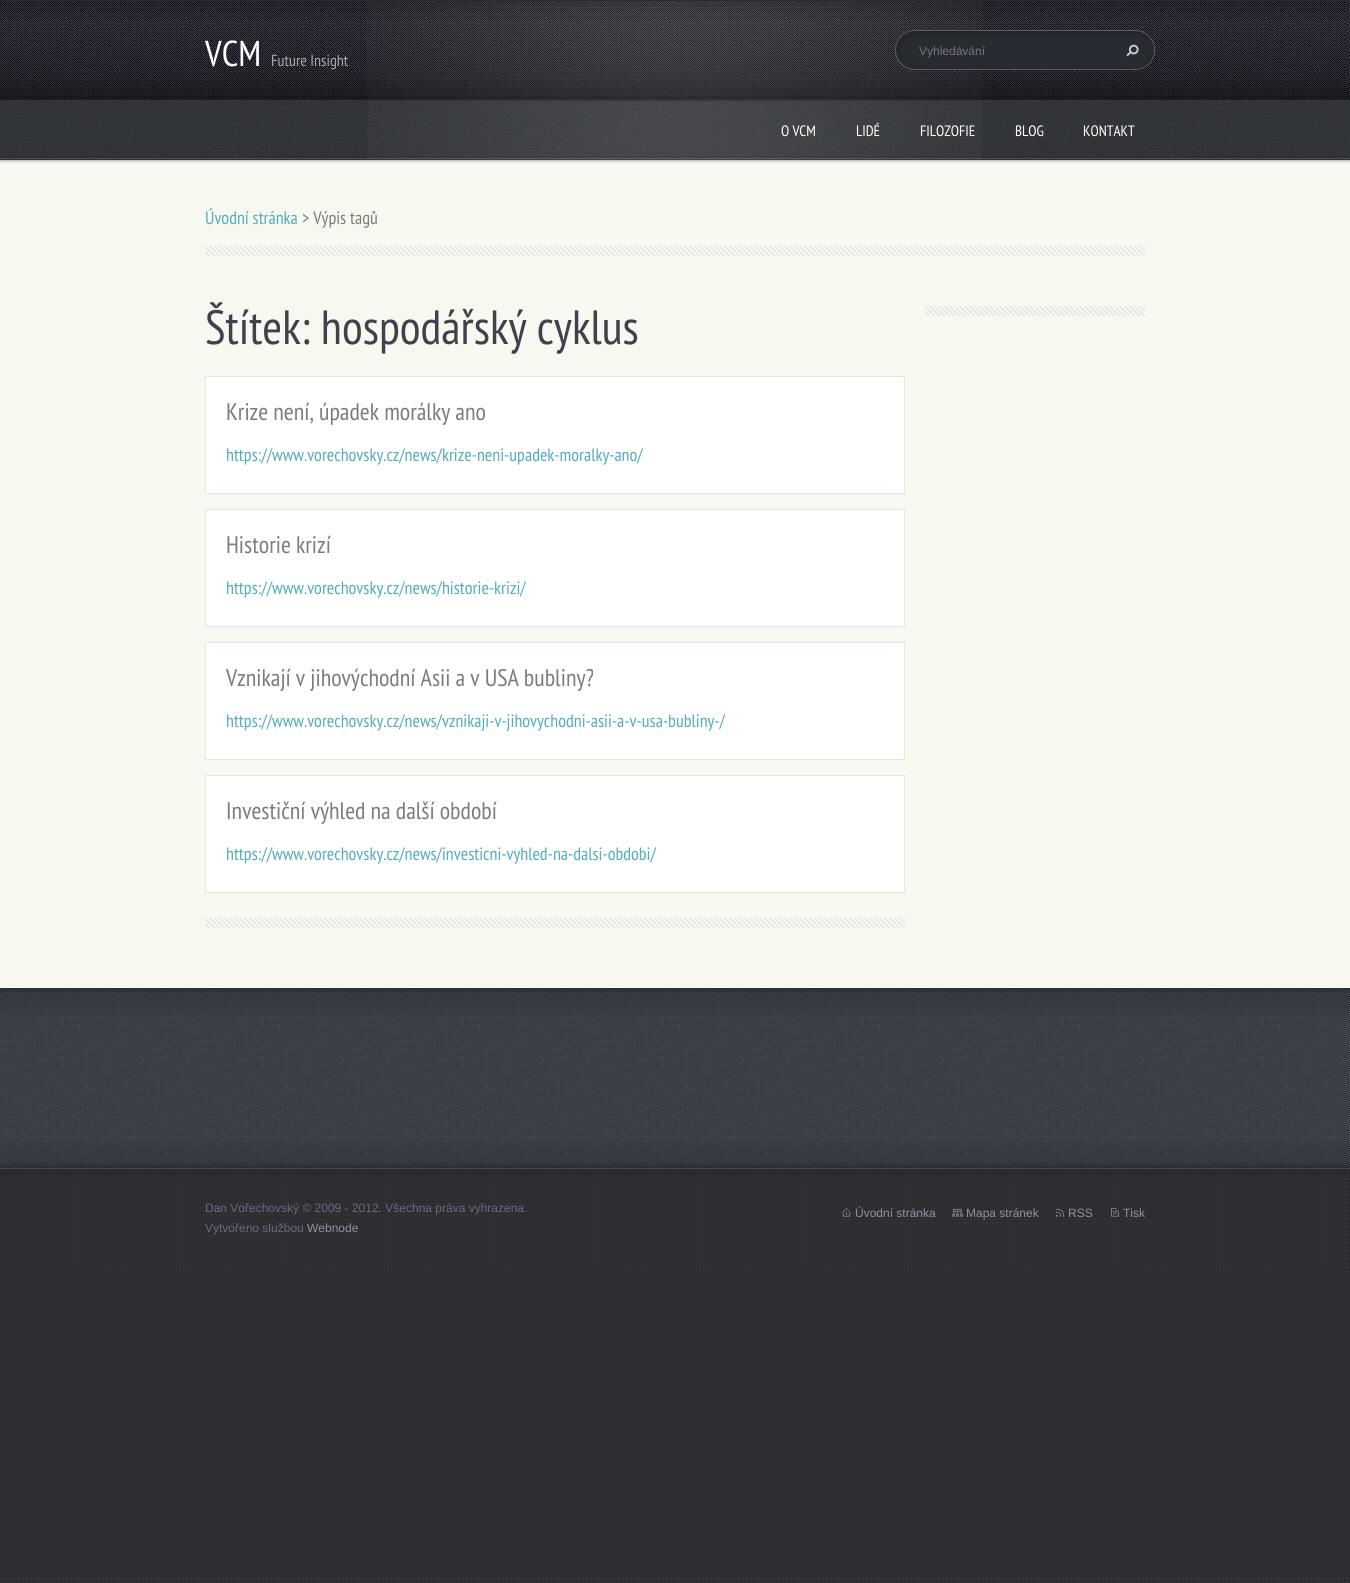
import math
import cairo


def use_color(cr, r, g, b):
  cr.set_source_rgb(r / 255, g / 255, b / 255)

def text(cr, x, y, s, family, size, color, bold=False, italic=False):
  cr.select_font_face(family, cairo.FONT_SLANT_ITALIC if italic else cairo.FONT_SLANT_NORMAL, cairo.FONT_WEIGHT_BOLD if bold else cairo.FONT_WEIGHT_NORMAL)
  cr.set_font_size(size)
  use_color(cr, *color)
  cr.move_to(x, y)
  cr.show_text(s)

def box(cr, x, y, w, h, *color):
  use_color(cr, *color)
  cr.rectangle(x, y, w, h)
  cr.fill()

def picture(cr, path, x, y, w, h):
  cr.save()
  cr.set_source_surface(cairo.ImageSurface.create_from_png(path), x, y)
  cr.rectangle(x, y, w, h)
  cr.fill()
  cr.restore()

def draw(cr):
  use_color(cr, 255, 255, 255)
  cr.paint()
  picture(cr, "img_01.png", 0, 100, 1350, 1483)
  picture(cr, "img_02.png", 0, 0, 1350, 100)
  picture(cr, "img_03.png", 367, 1, 615, 99)
  picture(cr, "img_04.png", 895, 30, 260, 40)
  picture(cr, "img_05.png", 1126, 44, 13, 13)
  picture(cr, "img_06.png", 0, 100, 1350, 60)
  picture(cr, "img_07.png", 367, 101, 615, 59)
  box(cr, 0, 160, 1350, 828, 248, 247, 240)
  picture(cr, "img_08.png", 0, 160, 1350, 3)
  picture(cr, "img_09.png", 205, 246, 940, 10)
  picture(cr, "img_10.png", 205, 918, 700, 10)
  use_color(cr, 255, 255, 255)
  cr.rectangle(205.5, 376.5, 699, 117)
  cr.fill_preserve()
  use_color(cr, 229, 229, 229)
  cr.set_line_width(1)
  cr.stroke()
  use_color(cr, 255, 255, 255)
  cr.rectangle(205.5, 509.5, 699, 117)
  cr.fill_preserve()
  use_color(cr, 229, 229, 229)
  cr.stroke()
  use_color(cr, 255, 255, 255)
  cr.rectangle(205.5, 642.5, 699, 117)
  cr.fill_preserve()
  use_color(cr, 229, 229, 229)
  cr.stroke()
  use_color(cr, 255, 255, 255)
  cr.rectangle(205.5, 775.5, 699, 117)
  cr.fill_preserve()
  use_color(cr, 229, 229, 229)
  cr.stroke()
  picture(cr, "img_11.png", 925, 306, 220, 10)
  picture(cr, "img_12.png", 0, 988, 1350, 180)
  picture(cr, "img_13.png", 0, 988, 1350, 27)
  picture(cr, "img_14.png", 0, 1142, 1350, 26)
  picture(cr, "img_15.png", 0, 1168, 1350, 103)
  picture(cr, "img_16.png", 842, 1208, 9, 9)
  picture(cr, "img_17.png", 952, 1208, 11, 9)
  picture(cr, "img_18.png", 1056, 1208, 8, 9)
  picture(cr, "img_19.png", 1111, 1207, 8, 10)
  text(cr, 205, 66, "VCM", "PT Sans Narrow", 36, (255, 255, 255))
  text(cr, 271, 66, "Future Insight", "PT Sans Narrow", 16, (167, 168, 171))
  text(cr, 919, 55, "Vyhledávání", "Liberation Sans", 12, (117, 117, 117))
  text(cr, 781, 136, "O VCM", "PT Sans Narrow", 15, (255, 255, 255))
  text(cr, 856, 136, "LIDÉ", "PT Sans Narrow", 15, (255, 255, 255))
  text(cr, 920, 136, "FILOZOFIE", "PT Sans Narrow", 15, (255, 255, 255))
  text(cr, 1015, 136, "BLOG", "PT Sans Narrow", 15, (255, 255, 255))
  text(cr, 1083, 136, "KONTAKT", "PT Sans Narrow", 15, (255, 255, 255))
  text(cr, 205, 224, "Úvodní stránka", "PT Sans Narrow", 18, (82, 173, 188))
  text(cr, 302, 224, "> Výpis tagů", "PT Sans Narrow", 18, (124, 124, 124))
  text(cr, 205, 344, "Štítek: hospodářský cyklus", "PT Sans Narrow", 48, (63, 66, 74))
  text(cr, 226, 420, "Krize není, úpadek morálky ano", "PT Sans Narrow", 24, (124, 124, 124))
  text(cr, 226, 461, "https://www.vorechovsky.cz/news/krize-neni-upadek-moralky-ano/", "PT Sans Narrow", 18, (82, 173, 188))
  text(cr, 226, 553, "Historie krizí", "PT Sans Narrow", 24, (124, 124, 124))
  text(cr, 226, 594, "https://www.vorechovsky.cz/news/historie-krizi/", "PT Sans Narrow", 18, (82, 173, 188))
  text(cr, 226, 686, "Vznikají v jihovýchodní Asii a v USA bubliny?", "PT Sans Narrow", 24, (124, 124, 124))
  text(cr, 226, 727, "https://www.vorechovsky.cz/news/vznikaji-v-jihovychodni-asii-a-v-usa-bubliny-/", "PT Sans Narrow", 18, (82, 173, 188))
  text(cr, 226, 819, "Investiční výhled na další období", "PT Sans Narrow", 24, (124, 124, 124))
  text(cr, 226, 860, "https://www.vorechovsky.cz/news/investicni-vyhled-na-dalsi-obdobi/", "PT Sans Narrow", 18, (82, 173, 188))
  text(cr, 205, 1212, "Dan Vořechovský © 2009 - 2012. Všechna práva vyhrazena.", "Liberation Sans", 12, (104, 107, 122))
  text(cr, 205, 1232, "Vytvořeno službou", "Liberation Sans", 12, (104, 107, 122))
  text(cr, 307, 1232, "Webnode", "Liberation Sans", 12, (143, 148, 158))
  text(cr, 855, 1217, "Úvodní stránka", "Liberation Sans", 12, (143, 148, 158))
  text(cr, 966, 1217, "Mapa stránek", "Liberation Sans", 12, (143, 148, 158))
  text(cr, 1068, 1217, "RSS", "Liberation Sans", 12, (143, 148, 158))
  text(cr, 1123, 1217, "Tisk", "Liberation Sans", 12, (143, 148, 158))


surface = cairo.ImageSurface(cairo.FORMAT_RGB24, 1350, 1583)
cr = cairo.Context(surface)
options = cairo.FontOptions()
options.set_hint_metrics(cairo.HINT_METRICS_OFF)
options.set_hint_style(cairo.HINT_STYLE_NONE)
cr.set_font_options(options)
cr.set_miter_limit(4)
draw(cr)
surface.write_to_png("out.png")
